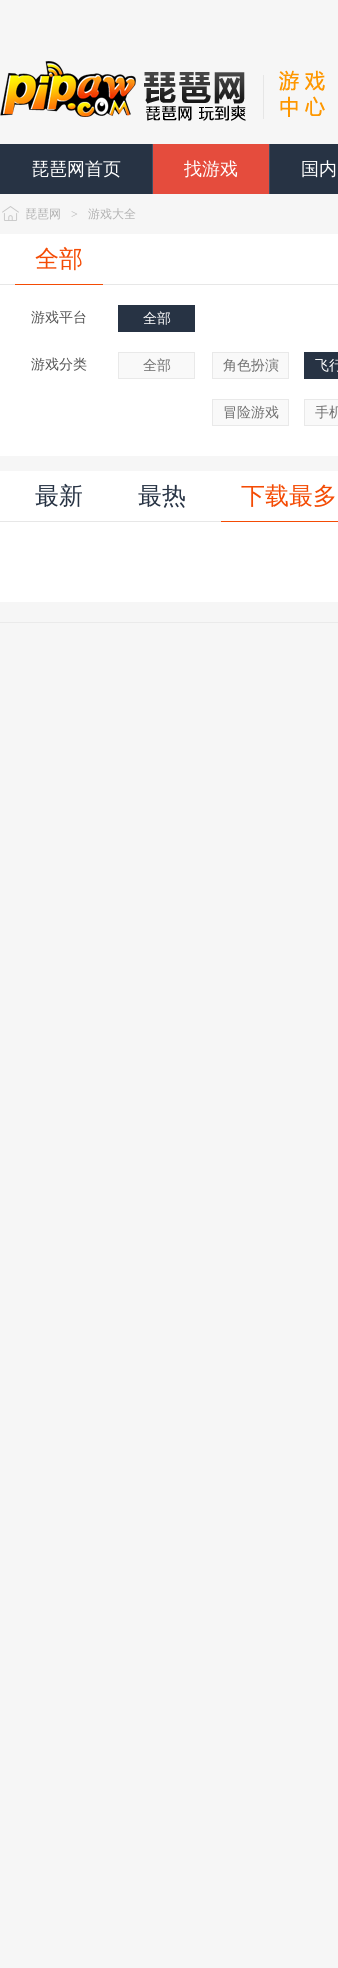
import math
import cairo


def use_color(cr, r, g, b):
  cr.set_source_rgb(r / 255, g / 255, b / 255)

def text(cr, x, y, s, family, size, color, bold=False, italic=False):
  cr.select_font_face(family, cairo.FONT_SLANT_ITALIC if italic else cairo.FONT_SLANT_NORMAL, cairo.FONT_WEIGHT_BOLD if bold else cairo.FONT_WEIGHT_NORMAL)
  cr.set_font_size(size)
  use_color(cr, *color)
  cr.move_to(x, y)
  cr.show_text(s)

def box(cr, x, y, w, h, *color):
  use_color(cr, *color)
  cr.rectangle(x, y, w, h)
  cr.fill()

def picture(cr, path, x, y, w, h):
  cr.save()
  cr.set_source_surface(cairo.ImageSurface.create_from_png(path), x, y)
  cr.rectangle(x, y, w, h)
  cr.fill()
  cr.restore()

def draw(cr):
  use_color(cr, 246, 246, 246)
  cr.paint()
  picture(cr, "img_01.png", 0, 61, 264, 60)
  picture(cr, "img_02.png", 279, 70, 46, 47)
  box(cr, 0, 144, 338, 50, 39, 51, 68)
  box(cr, 152, 144, 1, 50, 63, 78, 100)
  box(cr, 153, 144, 116, 50, 229, 76, 61)
  box(cr, 269, 144, 1, 50, 63, 78, 100)
  picture(cr, "img_03.png", 2, 206, 17, 15)
  box(cr, 0, 234, 338, 368, 255, 255, 255)
  box(cr, 0, 284, 338, 1, 231, 231, 231)
  box(cr, 15, 284, 88, 1, 244, 75, 4)
  box(cr, 118, 305, 77, 27, 39, 51, 68)
  use_color(cr, 249, 249, 249)
  cr.rectangle(118.5, 352.5, 76, 26)
  cr.fill_preserve()
  use_color(cr, 233, 233, 233)
  cr.set_line_width(1)
  cr.stroke()
  use_color(cr, 249, 249, 249)
  cr.rectangle(212.5, 352.5, 76, 26)
  cr.fill_preserve()
  use_color(cr, 233, 233, 233)
  cr.stroke()
  box(cr, 304, 352, 34, 27, 39, 51, 68)
  use_color(cr, 249, 249, 249)
  cr.rectangle(212.5, 399.5, 76, 26)
  cr.fill_preserve()
  use_color(cr, 233, 233, 233)
  cr.stroke()
  use_color(cr, 249, 249, 249)
  cr.rectangle(304.5, 399.5, 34, 26)
  cr.fill_preserve()
  use_color(cr, 233, 233, 233)
  cr.stroke()
  box(cr, 0, 456, 338, 15, 246, 246, 246)
  box(cr, 0, 521, 221, 1, 231, 231, 231)
  box(cr, 221, 521, 117, 1, 244, 75, 4)
  box(cr, 0, 622, 338, 1, 234, 234, 234)
  text(cr, 31, 175, "琵琶网首页", "WenQuanYi Zen Hei Medium", 18, (255, 255, 255))
  text(cr, 184, 175, "找游戏", "WenQuanYi Zen Hei Medium", 18, (255, 255, 255))
  text(cr, 301, 175, "国内", "WenQuanYi Zen Hei Medium", 18, (255, 255, 255))
  text(cr, 25, 218, "琵琶网", "WenQuanYi Zen Hei Medium", 12, (178, 178, 178))
  text(cr, 71, 218, ">", "Liberation Serif", 12, (178, 178, 178))
  text(cr, 88, 218, "游戏大全", "WenQuanYi Zen Hei Medium", 12, (178, 178, 178))
  text(cr, 35, 267, "全部", "WenQuanYi Zen Hei Medium", 24, (244, 75, 4))
  text(cr, 31, 322, "游戏平台", "WenQuanYi Zen Hei Medium", 14, (84, 84, 84))
  text(cr, 143, 323, "全部", "WenQuanYi Zen Hei Medium", 14, (255, 255, 255))
  text(cr, 31, 369, "游戏分类", "WenQuanYi Zen Hei Medium", 14, (84, 84, 84))
  text(cr, 143, 370, "全部", "WenQuanYi Zen Hei Medium", 14, (111, 111, 111))
  text(cr, 223, 370, "角色扮演", "WenQuanYi Zen Hei Medium", 14, (111, 111, 111))
  text(cr, 315, 370, "飞行", "WenQuanYi Zen Hei Medium", 14, (255, 255, 255))
  text(cr, 223, 417, "冒险游戏", "WenQuanYi Zen Hei Medium", 14, (111, 111, 111))
  text(cr, 315, 417, "手机", "WenQuanYi Zen Hei Medium", 14, (111, 111, 111))
  text(cr, 35, 504, "最新", "WenQuanYi Zen Hei Medium", 24, (39, 51, 68))
  text(cr, 138, 504, "最热", "WenQuanYi Zen Hei Medium", 24, (39, 51, 68))
  text(cr, 241, 504, "下载最多", "WenQuanYi Zen Hei Medium", 24, (244, 75, 4))


surface = cairo.ImageSurface(cairo.FORMAT_RGB24, 338, 1968)
cr = cairo.Context(surface)
options = cairo.FontOptions()
options.set_hint_metrics(cairo.HINT_METRICS_OFF)
options.set_hint_style(cairo.HINT_STYLE_NONE)
cr.set_font_options(options)
cr.set_miter_limit(4)
draw(cr)
surface.write_to_png("out.png")
